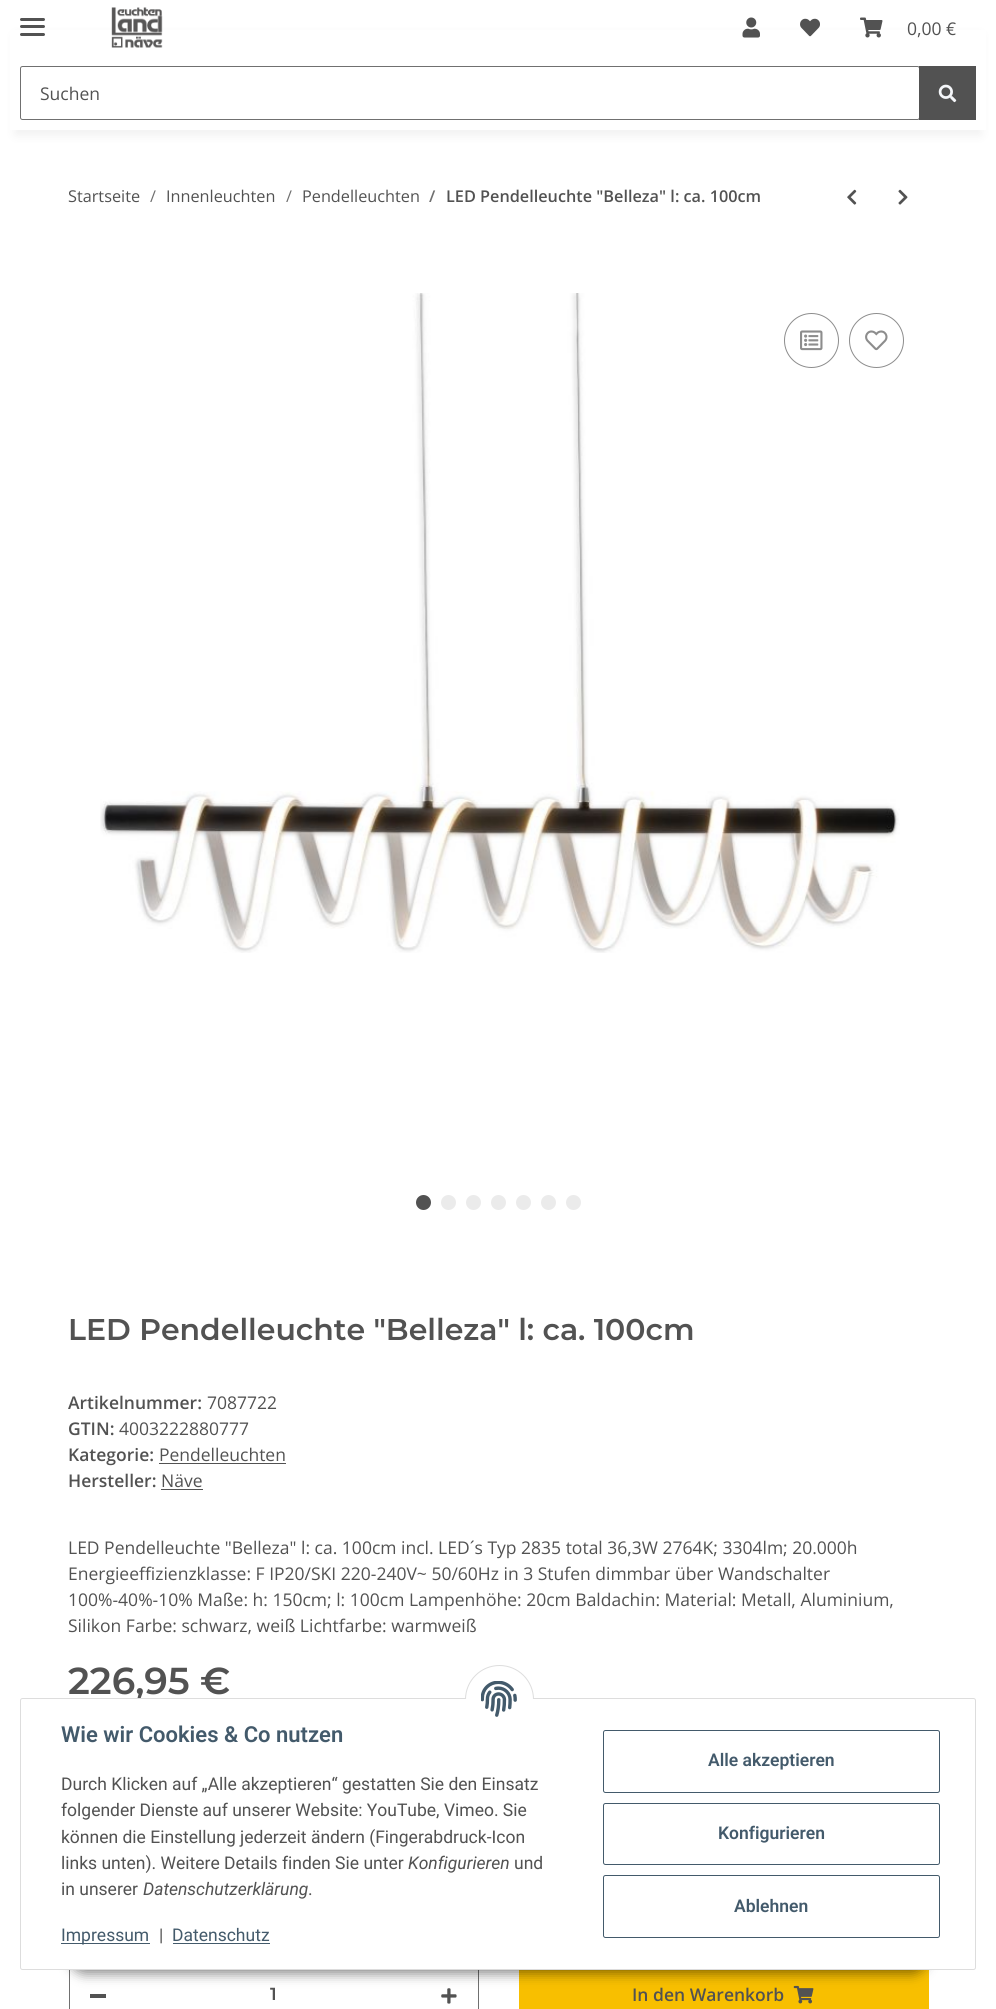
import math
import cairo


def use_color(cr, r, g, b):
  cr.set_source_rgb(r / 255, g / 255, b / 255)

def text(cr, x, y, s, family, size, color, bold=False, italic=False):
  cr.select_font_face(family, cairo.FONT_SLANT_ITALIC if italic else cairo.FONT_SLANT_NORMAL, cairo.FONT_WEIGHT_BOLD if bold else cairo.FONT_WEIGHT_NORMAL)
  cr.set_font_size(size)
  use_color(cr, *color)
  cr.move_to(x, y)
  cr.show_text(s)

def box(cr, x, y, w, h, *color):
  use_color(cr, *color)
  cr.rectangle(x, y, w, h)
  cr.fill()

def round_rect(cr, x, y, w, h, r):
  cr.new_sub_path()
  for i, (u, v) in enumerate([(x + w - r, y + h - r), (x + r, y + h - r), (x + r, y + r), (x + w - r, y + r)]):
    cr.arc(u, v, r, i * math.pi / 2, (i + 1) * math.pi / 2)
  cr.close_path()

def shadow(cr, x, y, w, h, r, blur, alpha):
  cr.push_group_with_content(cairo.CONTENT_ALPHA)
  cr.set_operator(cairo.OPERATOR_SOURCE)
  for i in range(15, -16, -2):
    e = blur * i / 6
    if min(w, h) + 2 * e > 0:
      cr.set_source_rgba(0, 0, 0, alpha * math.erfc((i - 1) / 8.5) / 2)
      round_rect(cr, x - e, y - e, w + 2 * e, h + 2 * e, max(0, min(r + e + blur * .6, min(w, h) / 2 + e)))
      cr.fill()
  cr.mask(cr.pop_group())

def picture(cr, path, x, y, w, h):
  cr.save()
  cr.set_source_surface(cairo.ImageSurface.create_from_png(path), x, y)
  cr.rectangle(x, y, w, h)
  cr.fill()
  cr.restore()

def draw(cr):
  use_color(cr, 255, 255, 255)
  cr.paint()
  use_color(cr, 0, 0, 0)
  shadow(cr, 15, 35, 966, 100, 0, 5.5, 0.06)
  box(cr, 10, 30, 976, 100, 255, 255, 255)
  use_color(cr, 82, 82, 82)
  round_rect(cr, 20, 25, 25, 3, 1.5)
  cr.fill()
  round_rect(cr, 20, 18, 25, 3, 1.5)
  cr.fill()
  round_rect(cr, 20, 33, 25, 3, 1.5)
  cr.fill()
  picture(cr, "img_01.png", 111, 7, 52, 41)
  picture(cr, "img_02.png", 742, 17, 18, 21)
  picture(cr, "img_03.png", 800, 18, 20, 19)
  picture(cr, "img_04.png", 860, 17, 23, 21)
  round_rect(cr, 20.5, 66.5, 899, 53, 2)
  use_color(cr, 112, 112, 112)
  cr.set_line_width(1)
  cr.stroke()
  box(cr, 919, 66, 57, 54, 82, 82, 82)
  picture(cr, "img_05.png", 938, 84, 19, 19)
  picture(cr, "img_06.png", 847, 189, 10, 16)
  picture(cr, "img_07.png", 898, 189, 10, 16)
  picture(cr, "img_08.png", 100, 293, 800, 660)
  cr.arc(423.5, 1202.5, 6, 0, 2 * math.pi)
  cr.fill_preserve()
  cr.set_line_width(3)
  cr.stroke()
  use_color(cr, 235, 235, 235)
  cr.arc(448.5, 1202.5, 6, 0, 2 * math.pi)
  cr.fill_preserve()
  cr.stroke()
  cr.arc(473.5, 1202.5, 6, 0, 2 * math.pi)
  cr.fill_preserve()
  cr.stroke()
  cr.arc(498.5, 1202.5, 6, 0, 2 * math.pi)
  cr.fill_preserve()
  cr.stroke()
  cr.arc(523.5, 1202.5, 6, 0, 2 * math.pi)
  cr.fill_preserve()
  cr.stroke()
  cr.arc(548.5, 1202.5, 6, 0, 2 * math.pi)
  cr.fill_preserve()
  cr.stroke()
  cr.arc(573.5, 1202.5, 6, 0, 2 * math.pi)
  cr.fill_preserve()
  cr.stroke()
  cr.arc(811.5, 340.5, 27, 0, 2 * math.pi)
  use_color(cr, 141, 141, 141)
  cr.set_line_width(1)
  cr.stroke()
  picture(cr, "img_09.png", 800, 330, 23, 21)
  cr.arc(876.5, 340.5, 27, 0, 2 * math.pi)
  cr.stroke()
  picture(cr, "img_10.png", 865, 330, 23, 21)
  box(cr, 159, 1463, 127, 1, 82, 82, 82)
  box(cr, 161, 1489, 42, 1, 82, 82, 82)
  cr.rectangle(69.5, 1968.5, 409, 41)
  use_color(cr, 112, 112, 112)
  cr.stroke()
  box(cr, 90, 1994, 16, 4, 82, 82, 82)
  picture(cr, "img_11.png", 441, 1988, 16, 16)
  box(cr, 519, 1970, 410, 39, 248, 191, 0)
  cr.rectangle(519.5, 1968.5, 409, 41)
  cr.stroke()
  picture(cr, "img_12.png", 793, 1985, 21, 19)
  use_color(cr, 0, 0, 0)
  shadow(cr, 69, 1934, 859, 40, 20, 6, 0.45)
  text(cr, 907, 35, "0,00 €", "Open Sans", 17.5, (82, 82, 82))
  text(cr, 40, 100, "Suchen", "Open Sans", 17.5, (82, 82, 82))
  text(cr, 68, 202, "Startseite", "Open Sans", 16.25, (82, 82, 82))
  text(cr, 150, 202, "/", "Open Sans", 16.25, (112, 112, 112))
  text(cr, 166, 202, "Innenleuchten", "Open Sans", 16.25, (82, 82, 82))
  text(cr, 286, 202, "/", "Open Sans", 16.25, (112, 112, 112))
  text(cr, 302, 202, "Pendelleuchten", "Open Sans", 16.25, (82, 82, 82))
  text(cr, 429, 202, "/", "Open Sans SemiBold", 16.25, (112, 112, 112))
  text(cr, 446, 202, "LED Pendelleuchte \"Belleza\" l: ca. 100cm", "Open Sans SemiBold", 16.25, (82, 82, 82))
  text(cr, 68, 1340, "LED Pendelleuchte \"Belleza\" l: ca. 100cm", "Montserrat SemiBold", 30, (82, 82, 82))
  text(cr, 68, 1409, "Artikelnummer:", "Open Sans SemiBold", 17.5, (82, 82, 82))
  text(cr, 207, 1409, "7087722", "Open Sans", 17.5, (82, 82, 82))
  text(cr, 68, 1435, "GTIN:", "Open Sans SemiBold", 17.5, (82, 82, 82))
  text(cr, 119, 1435, "4003222880777", "Open Sans", 17.5, (82, 82, 82))
  text(cr, 68, 1461, "Kategorie:", "Open Sans SemiBold", 17.5, (82, 82, 82))
  text(cr, 159, 1461, "Pendelleuchten", "Open Sans", 17.5, (82, 82, 82))
  text(cr, 68, 1487, "Hersteller:", "Open Sans SemiBold", 17.5, (82, 82, 82))
  text(cr, 161, 1487, "Näve", "Open Sans", 17.5, (82, 82, 82))
  text(cr, 68, 1554, "LED Pendelleuchte \"Belleza\" l: ca. 100cm incl. LED´s Typ 2835 total 36,3W 2764K; 3304lm; 20.000h", "Open Sans", 17.5, (82, 82, 82))
  text(cr, 68, 1580, "Energieeffizienzklasse: F IP20/SKI 220-240V~ 50/60Hz in 3 Stufen dimmbar über Wandschalter", "Open Sans", 17.5, (82, 82, 82))
  text(cr, 68, 1606, "100%-40%-10% Maße: h: 150cm; l: 100cm Lampenhöhe: 20cm Baldachin: Material: Metall, Aluminium,", "Open Sans", 17.5, (82, 82, 82))
  text(cr, 68, 1632, "Silikon Farbe: schwarz, weiß Lichtfarbe: warmweiß", "Open Sans", 17.5, (82, 82, 82))
  text(cr, 68, 1694, "226,95 €", "Montserrat SemiBold", 37.5, (82, 82, 82))
  text(cr, 270, 2000, "1", "Montserrat SemiBold", 17.5, (82, 82, 82))
  text(cr, 632, 2001, "In den Warenkorb", "Open Sans SemiBold", 17.5, (82, 82, 82))
  use_color(cr, 255, 255, 255)
  round_rect(cr, 20.5, 1698.5, 955, 271, 2)
  cr.fill_preserve()
  use_color(cr, 221, 221, 221)
  cr.stroke()
  use_color(cr, 255, 255, 255)
  cr.arc(499.5, 1699.5, 34, 0, 2 * math.pi)
  cr.fill_preserve()
  use_color(cr, 221, 221, 221)
  cr.stroke()
  box(cr, 465, 1699, 69, 35, 255, 255, 255)
  picture(cr, "img_13.png", 481, 1681, 36, 36)
  text(cr, 61, 1742, "Wie wir Cookies & Co nutzen", "Roboto SemiBold", 22, (67, 90, 107))
  text(cr, 61, 1790, "Durch Klicken auf „Alle akzeptieren“ gestatten Sie den Einsatz", "Roboto", 17.5, (82, 82, 82))
  text(cr, 61, 1816, "folgender Dienste auf unserer Website: YouTube, Vimeo. Sie", "Roboto", 17.5, (82, 82, 82))
  text(cr, 61, 1843, "können die Einstellung jederzeit ändern (Fingerabdruck-Icon", "Roboto", 17.5, (82, 82, 82))
  text(cr, 61, 1869, "links unten). Weitere Details finden Sie unter", "Roboto", 17.5, (82, 82, 82))
  text(cr, 408, 1869, "Konfigurieren", "Roboto", 17.5, (82, 82, 82), italic=True)
  text(cr, 514, 1869, "und", "Roboto", 17.5, (82, 82, 82))
  text(cr, 61, 1895, "in unserer", "Roboto", 17.5, (82, 82, 82))
  text(cr, 143, 1895, "Datenschutzerklärung", "Roboto", 17.5, (82, 82, 82), italic=True)
  text(cr, 308, 1895, ".", "Roboto", 17.5, (82, 82, 82))
  box(cr, 61, 1943, 89, 1, 67, 90, 107)
  text(cr, 61, 1941, "Impressum", "Roboto", 17.5, (67, 90, 107))
  text(cr, 159, 1941, "|", "Roboto", 17.5, (82, 82, 82))
  text(cr, 172, 1941, "Datenschutz", "Roboto", 17.5, (67, 90, 107))
  box(cr, 173, 1943, 97, 1, 67, 90, 107)
  round_rect(cr, 603.5, 1730.5, 336, 62, 2)
  cr.stroke()
  text(cr, 708, 1766, "Alle akzeptieren", "Roboto SemiBold", 17.5, (67, 90, 107))
  round_rect(cr, 603.5, 1803.5, 336, 61, 2)
  cr.stroke()
  text(cr, 718, 1839, "Konfigurieren", "Roboto SemiBold", 17.5, (67, 90, 107))
  round_rect(cr, 603.5, 1875.5, 336, 62, 2)
  cr.stroke()
  text(cr, 734, 1912, "Ablehnen", "Roboto SemiBold", 17.5, (67, 90, 107))


surface = cairo.ImageSurface(cairo.FORMAT_RGB24, 996, 2009)
cr = cairo.Context(surface)
options = cairo.FontOptions()
options.set_hint_metrics(cairo.HINT_METRICS_OFF)
options.set_hint_style(cairo.HINT_STYLE_NONE)
cr.set_font_options(options)
cr.set_miter_limit(4)
draw(cr)
surface.write_to_png("out.png")
